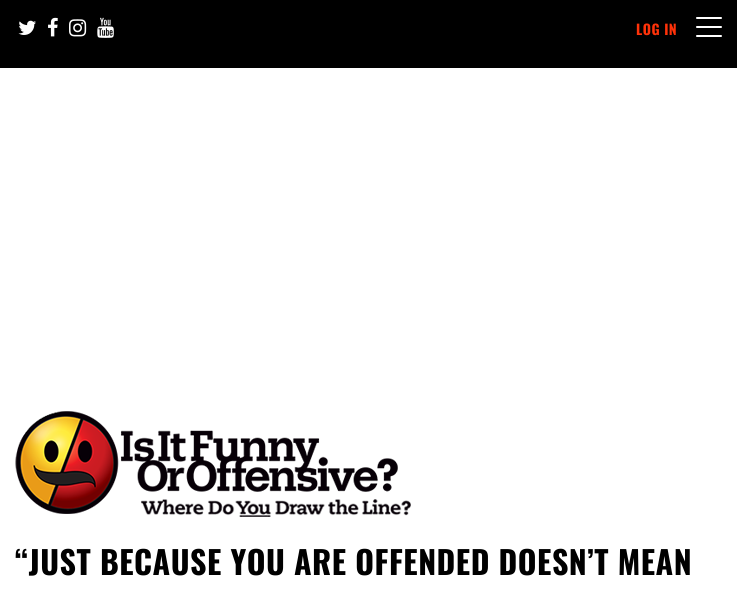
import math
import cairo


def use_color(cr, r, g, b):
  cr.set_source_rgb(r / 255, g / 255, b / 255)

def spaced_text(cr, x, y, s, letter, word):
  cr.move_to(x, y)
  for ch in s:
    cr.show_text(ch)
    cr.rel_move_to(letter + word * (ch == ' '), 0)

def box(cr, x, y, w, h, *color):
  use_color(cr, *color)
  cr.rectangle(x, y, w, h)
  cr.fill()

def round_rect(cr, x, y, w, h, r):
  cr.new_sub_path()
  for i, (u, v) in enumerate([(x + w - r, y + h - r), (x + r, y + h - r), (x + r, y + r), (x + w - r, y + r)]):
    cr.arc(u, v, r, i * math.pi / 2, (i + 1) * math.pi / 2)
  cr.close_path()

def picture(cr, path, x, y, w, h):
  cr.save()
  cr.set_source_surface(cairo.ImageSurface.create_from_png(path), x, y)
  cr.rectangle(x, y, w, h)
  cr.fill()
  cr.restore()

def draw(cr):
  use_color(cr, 255, 255, 255)
  cr.paint()
  box(cr, 0, 0, 737, 68, 0, 0, 0)
  picture(cr, "img_01.png", 18, 20, 18, 15)
  picture(cr, "img_02.png", 48, 17, 10, 20)
  picture(cr, "img_03.png", 69, 19, 18, 18)
  picture(cr, "img_04.png", 97, 17, 17, 21)
  use_color(cr, 255, 255, 255)
  round_rect(cr, 696, 26, 26, 2, 1)
  cr.fill()
  round_rect(cr, 696, 17, 26, 2, 1)
  cr.fill()
  round_rect(cr, 696, 35, 26, 2, 1)
  cr.fill()
  picture(cr, "img_05.png", 15, 411, 396, 106)
  cr.select_font_face("Oswald", cairo.FONT_SLANT_NORMAL, cairo.FONT_WEIGHT_BOLD)
  cr.set_font_size(14)
  use_color(cr, 255, 50, 9)
  spaced_text(cr, 636, 35, "LOG IN", 0.5, 0)
  cr.set_font_size(32)
  use_color(cr, 0, 0, 0)
  spaced_text(cr, 15, 575, "“JUST BECAUSE YOU ARE OFFENDED DOESN’T MEAN", 0.5, 0)


surface = cairo.ImageSurface(cairo.FORMAT_RGB24, 737, 594)
cr = cairo.Context(surface)
options = cairo.FontOptions()
options.set_hint_metrics(cairo.HINT_METRICS_OFF)
options.set_hint_style(cairo.HINT_STYLE_NONE)
cr.set_font_options(options)
cr.set_miter_limit(4)
draw(cr)
surface.write_to_png("out.png")
